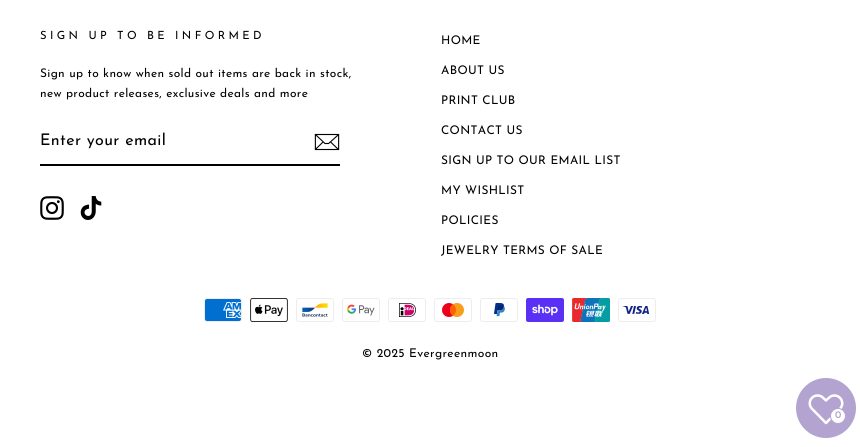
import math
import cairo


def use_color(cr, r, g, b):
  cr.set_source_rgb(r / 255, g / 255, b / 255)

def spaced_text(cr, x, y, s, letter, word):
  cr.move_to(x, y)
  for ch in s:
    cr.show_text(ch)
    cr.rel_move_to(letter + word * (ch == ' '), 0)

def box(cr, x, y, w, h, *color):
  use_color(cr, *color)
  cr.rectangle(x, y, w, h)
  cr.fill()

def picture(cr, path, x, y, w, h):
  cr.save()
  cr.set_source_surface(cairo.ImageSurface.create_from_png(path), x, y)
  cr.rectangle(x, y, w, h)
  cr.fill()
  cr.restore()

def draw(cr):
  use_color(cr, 255, 255, 255)
  cr.paint()
  box(cr, 40, 164, 300, 2, 0, 0, 0)
  picture(cr, "img_01.png", 314, 133, 26, 18)
  picture(cr, "img_02.png", 40, 196, 24, 24)
  picture(cr, "img_03.png", 80, 196, 22, 24)
  picture(cr, "img_04.png", 204, 298, 38, 24)
  picture(cr, "img_05.png", 250, 298, 38, 24)
  picture(cr, "img_06.png", 296, 298, 38, 24)
  picture(cr, "img_07.png", 342, 298, 38, 24)
  picture(cr, "img_08.png", 388, 298, 38, 24)
  picture(cr, "img_09.png", 434, 298, 38, 24)
  picture(cr, "img_10.png", 480, 298, 38, 24)
  picture(cr, "img_11.png", 526, 298, 38, 24)
  picture(cr, "img_12.png", 572, 298, 38, 24)
  picture(cr, "img_13.png", 618, 298, 38, 24)
  use_color(cr, 178, 163, 208)
  cr.arc(826, 408, 30, 0, 2 * math.pi)
  cr.fill()
  picture(cr, "img_14.png", 808, 394, 36, 31)
  use_color(cr, 255, 255, 255)
  cr.arc(838, 416, 7.5, 0, 2 * math.pi)
  cr.fill_preserve()
  use_color(cr, 178, 163, 208)
  cr.set_line_width(1)
  cr.stroke()
  cr.select_font_face("Josefin Sans")
  cr.set_font_size(11.25)
  use_color(cr, 0, 0, 0)
  spaced_text(cr, 40, 39, "SIGN UP TO BE INFORMED", 3.4, 0)
  cr.set_font_size(11.9)
  spaced_text(cr, 40, 77, "Sign up to know when sold out items are back in stock,", 0.35, 0)
  spaced_text(cr, 40, 97, "new product releases, exclusive deals and more", 0.35, 0)
  cr.set_font_size(16)
  spaced_text(cr, 40, 145, "Enter your email", 0.4, 0)
  cr.set_font_size(11.9)
  spaced_text(cr, 441, 44, "HOME", 0.35, 0)
  spaced_text(cr, 441, 74, "ABOUT US", 0.35, 0)
  spaced_text(cr, 441, 104, "PRINT CLUB", 0.35, 0)
  spaced_text(cr, 441, 134, "CONTACT US", 0.35, 0)
  spaced_text(cr, 441, 164, "SIGN UP TO OUR EMAIL LIST", 0.35, 0)
  spaced_text(cr, 441, 194, "MY WISHLIST", 0.35, 0)
  spaced_text(cr, 441, 224, "POLICIES", 0.35, 0)
  spaced_text(cr, 441, 254, "JEWELRY TERMS OF SALE", 0.35, 0)
  cr.set_font_size(12)
  spaced_text(cr, 362, 357, "© 2025 Evergreenmoon", 0.35, 0)
  cr.select_font_face("Josefin Sans SemiBold")
  cr.set_font_size(10)
  use_color(cr, 178, 163, 208)
  spaced_text(cr, 835, 418, "0", 0.35, 0)


surface = cairo.ImageSurface(cairo.FORMAT_RGB24, 860, 447)
cr = cairo.Context(surface)
options = cairo.FontOptions()
options.set_hint_metrics(cairo.HINT_METRICS_OFF)
options.set_hint_style(cairo.HINT_STYLE_NONE)
cr.set_font_options(options)
cr.set_miter_limit(4)
draw(cr)
surface.write_to_png("out.png")
